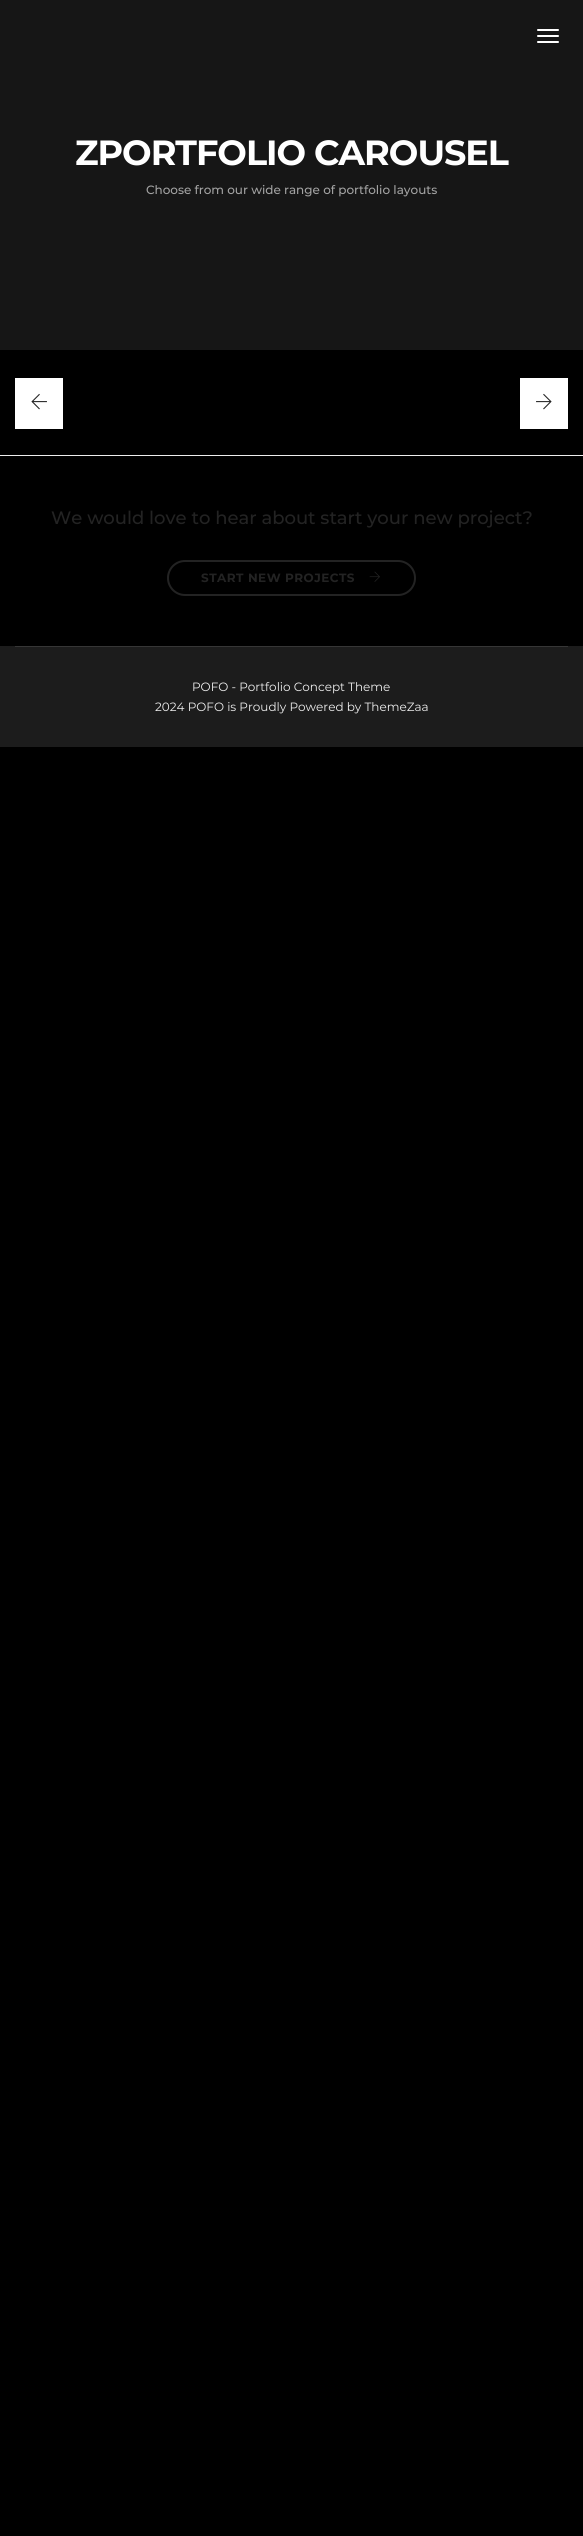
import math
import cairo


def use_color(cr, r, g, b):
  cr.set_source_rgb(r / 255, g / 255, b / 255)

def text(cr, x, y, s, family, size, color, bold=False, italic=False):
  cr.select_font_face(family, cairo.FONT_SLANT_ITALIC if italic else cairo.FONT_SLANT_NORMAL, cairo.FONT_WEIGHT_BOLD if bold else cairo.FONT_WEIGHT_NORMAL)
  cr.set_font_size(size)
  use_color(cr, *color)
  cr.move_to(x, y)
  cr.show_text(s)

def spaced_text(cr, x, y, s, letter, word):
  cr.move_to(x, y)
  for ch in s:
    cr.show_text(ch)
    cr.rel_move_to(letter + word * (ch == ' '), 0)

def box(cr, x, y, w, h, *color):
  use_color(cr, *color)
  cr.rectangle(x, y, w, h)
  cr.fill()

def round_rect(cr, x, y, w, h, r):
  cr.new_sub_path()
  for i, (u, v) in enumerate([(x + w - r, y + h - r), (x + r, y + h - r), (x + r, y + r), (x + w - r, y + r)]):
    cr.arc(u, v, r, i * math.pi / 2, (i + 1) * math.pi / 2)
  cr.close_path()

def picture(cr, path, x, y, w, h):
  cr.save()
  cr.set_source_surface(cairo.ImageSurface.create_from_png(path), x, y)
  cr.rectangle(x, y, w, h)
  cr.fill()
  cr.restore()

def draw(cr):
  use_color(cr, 0, 0, 0)
  cr.paint()
  box(cr, 0, 0, 583, 350, 22, 22, 22)
  use_color(cr, 255, 255, 255)
  round_rect(cr, 537, 29, 22, 2, 1)
  cr.fill()
  round_rect(cr, 537, 35, 22, 2, 1)
  cr.fill()
  round_rect(cr, 537, 41, 22, 2, 1)
  cr.fill()
  box(cr, 15, 378, 48, 51, 255, 255, 255)
  picture(cr, "img_01.png", 31, 393, 16, 17)
  box(cr, 520, 378, 48, 51, 255, 255, 255)
  picture(cr, "img_02.png", 536, 393, 16, 17)
  box(cr, 0, 455, 583, 1, 237, 237, 237)
  round_rect(cr, 168, 561, 247, 34, 17)
  use_color(cr, 35, 35, 35)
  cr.stroke()
  picture(cr, "img_03.png", 369, 571, 11, 11)
  box(cr, 0, 646, 583, 101, 28, 28, 28)
  box(cr, 15, 646, 553, 1, 54, 54, 54)
  cr.select_font_face("Montserrat", cairo.FONT_SLANT_NORMAL, cairo.FONT_WEIGHT_BOLD)
  cr.set_font_size(35)
  use_color(cr, 255, 255, 255)
  spaced_text(cr, 75, 165, "ZPORTFOLIO CAROUSEL", -1, 0)
  text(cr, 146, 194, "Choose from our wide range of portfolio layouts", "Montserrat Medium", 12, (162, 162, 162))
  text(cr, 51, 524, "We would love to hear about start your new project?", "Montserrat Medium", 18, (35, 35, 35))
  cr.select_font_face("Montserrat", cairo.FONT_SLANT_NORMAL, cairo.FONT_WEIGHT_BOLD)
  cr.set_font_size(12)
  spaced_text(cr, 201, 582, "START NEW PROJECTS", 0.5, 0)
  text(cr, 192, 691, "POFO - Portfolio Concept Theme", "Montserrat", 12, (239, 239, 239))
  text(cr, 155, 711, "2024 POFO is Proudly Powered by ThemeZaa", "Montserrat", 12, (239, 239, 239))


surface = cairo.ImageSurface(cairo.FORMAT_RGB24, 583, 2536)
cr = cairo.Context(surface)
options = cairo.FontOptions()
options.set_hint_metrics(cairo.HINT_METRICS_OFF)
options.set_hint_style(cairo.HINT_STYLE_NONE)
cr.set_font_options(options)
cr.set_miter_limit(4)
draw(cr)
surface.write_to_png("out.png")
